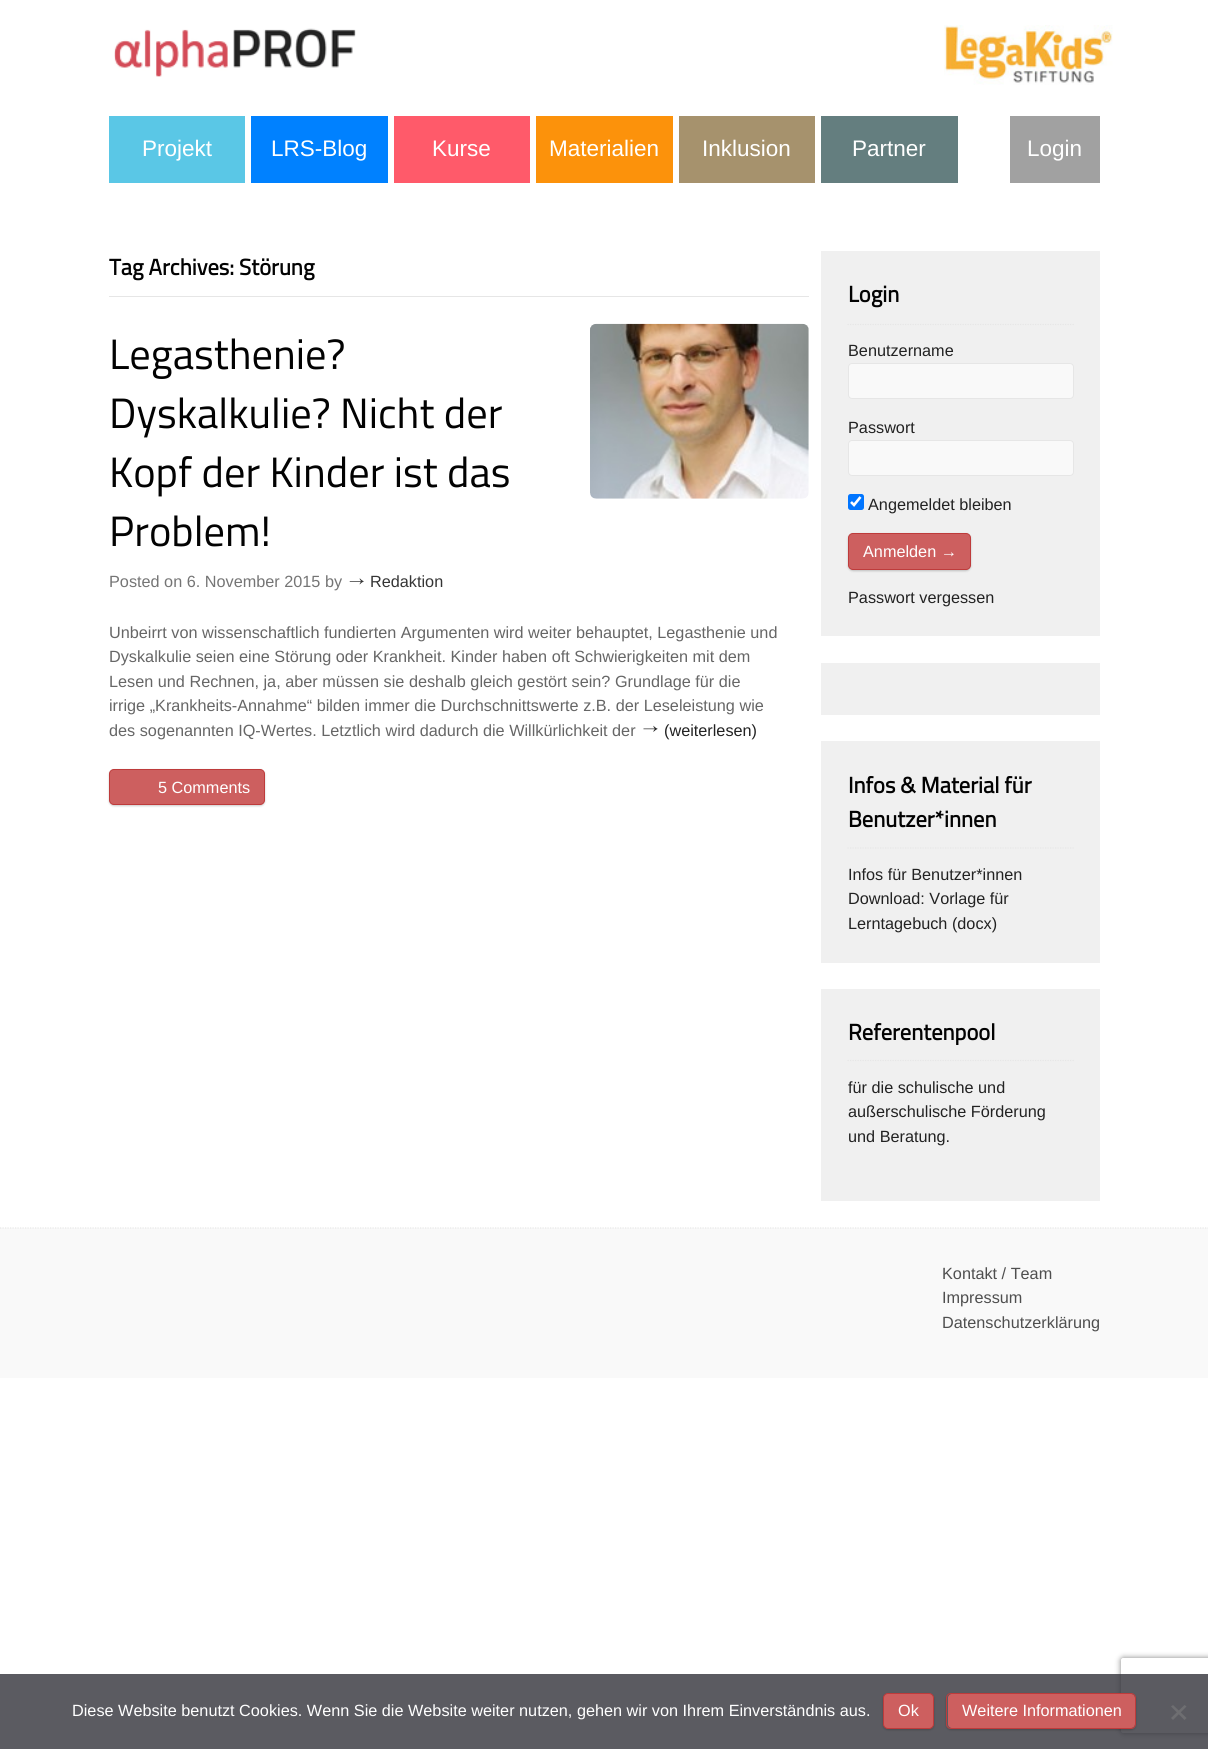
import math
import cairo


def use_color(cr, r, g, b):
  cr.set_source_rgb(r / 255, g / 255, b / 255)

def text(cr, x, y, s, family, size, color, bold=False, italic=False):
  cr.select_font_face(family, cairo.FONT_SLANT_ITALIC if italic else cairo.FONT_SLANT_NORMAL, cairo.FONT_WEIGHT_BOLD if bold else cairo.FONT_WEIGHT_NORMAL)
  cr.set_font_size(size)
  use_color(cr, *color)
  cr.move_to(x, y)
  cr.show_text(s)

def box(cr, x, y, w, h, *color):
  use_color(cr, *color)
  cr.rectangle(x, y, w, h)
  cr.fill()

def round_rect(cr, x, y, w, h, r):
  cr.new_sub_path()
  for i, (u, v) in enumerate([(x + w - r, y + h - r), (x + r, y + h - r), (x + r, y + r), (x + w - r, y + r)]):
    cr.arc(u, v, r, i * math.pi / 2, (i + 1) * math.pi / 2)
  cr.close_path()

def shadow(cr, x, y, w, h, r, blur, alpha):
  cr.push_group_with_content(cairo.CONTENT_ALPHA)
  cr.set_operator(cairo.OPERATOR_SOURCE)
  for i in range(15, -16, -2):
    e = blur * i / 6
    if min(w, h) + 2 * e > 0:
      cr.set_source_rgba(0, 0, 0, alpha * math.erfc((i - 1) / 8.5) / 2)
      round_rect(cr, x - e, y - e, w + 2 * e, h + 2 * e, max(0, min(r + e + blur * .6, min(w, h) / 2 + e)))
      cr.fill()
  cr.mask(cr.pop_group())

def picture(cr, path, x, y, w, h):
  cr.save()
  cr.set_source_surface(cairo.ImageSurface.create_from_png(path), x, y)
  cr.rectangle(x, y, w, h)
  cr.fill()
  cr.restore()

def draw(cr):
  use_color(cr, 255, 255, 255)
  cr.paint()
  picture(cr, "img_01.png", 114, 28, 242, 49)
  picture(cr, "img_02.png", 944, 25, 169, 60)
  box(cr, 109, 116, 136, 67, 90, 199, 230)
  box(cr, 251, 116, 137, 67, 0, 129, 255)
  box(cr, 394, 116, 136, 67, 255, 90, 106)
  box(cr, 536, 116, 137, 67, 252, 146, 11)
  box(cr, 679, 116, 136, 67, 166, 146, 109)
  box(cr, 821, 116, 137, 67, 100, 126, 127)
  box(cr, 1010, 116, 90, 67, 161, 161, 161)
  box(cr, 109, 296, 700, 1, 230, 230, 230)
  picture(cr, "img_03.png", 349, 578, 15, 7)
  picture(cr, "img_04.png", 590, 323, 219, 176)
  picture(cr, "img_05.png", 643, 725, 15, 7)
  use_color(cr, 0, 0, 0)
  shadow(cr, 109, 770, 156, 36, 5, 1, 0.2)
  use_color(cr, 205, 95, 95)
  round_rect(cr, 109.5, 769.5, 155, 35, 4.5)
  cr.fill_preserve()
  use_color(cr, 190, 59, 59)
  cr.set_line_width(1)
  cr.stroke()
  box(cr, 821, 251, 279, 385, 240, 240, 240)
  cr.new_path()
  cr.move_to(847.5, 324.5)
  cr.line_to(1074, 324.5)
  use_color(cr, 230, 230, 230)
  cr.set_line_width(1.2)
  cr.set_dash([1.25, 1.25])
  cr.stroke()
  use_color(cr, 249, 249, 249)
  round_rect(cr, 848.5, 363.5, 225, 35, 3.5)
  cr.fill_preserve()
  use_color(cr, 230, 230, 230)
  cr.set_line_width(1)
  cr.set_dash([])
  cr.stroke()
  use_color(cr, 249, 249, 249)
  round_rect(cr, 848.5, 440.5, 225, 35, 3.5)
  cr.fill_preserve()
  use_color(cr, 230, 230, 230)
  cr.stroke()
  use_color(cr, 0, 117, 255)
  round_rect(cr, 848, 494, 16, 16, 2.5)
  cr.fill()
  cr.new_path()
  cr.move_to(851, 502)
  cr.line_to(854, 505)
  cr.line_to(860.5, 497)
  use_color(cr, 255, 255, 255)
  cr.set_line_width(2.6)
  cr.stroke()
  use_color(cr, 0, 0, 0)
  shadow(cr, 848, 534, 123, 37, 5, 1, 0.2)
  use_color(cr, 205, 95, 95)
  round_rect(cr, 848.5, 533.5, 122, 36, 4.5)
  cr.fill_preserve()
  use_color(cr, 190, 59, 59)
  cr.set_line_width(1)
  cr.stroke()
  box(cr, 821, 663, 279, 52, 240, 240, 240)
  box(cr, 821, 741, 279, 222, 240, 240, 240)
  cr.new_path()
  cr.move_to(847.5, 848)
  cr.line_to(1074, 848)
  use_color(cr, 230, 230, 230)
  cr.set_line_width(1.2)
  cr.set_dash([1.25, 1.25])
  cr.stroke()
  box(cr, 821, 989, 279, 212, 240, 240, 240)
  cr.new_path()
  cr.move_to(847.5, 1060.5)
  cr.line_to(1074, 1060.5)
  use_color(cr, 230, 230, 230)
  cr.stroke()
  box(cr, 0, 1228, 1208, 150, 249, 249, 249)
  cr.new_path()
  cr.move_to(0, 1228)
  cr.line_to(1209, 1228)
  use_color(cr, 230, 230, 230)
  cr.stroke()
  cr.save()
  cr.set_fill_rule(cairo.FILL_RULE_EVEN_ODD)
  cr.new_path()
  cr.move_to(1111, 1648)
  cr.line_to(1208, 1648)
  cr.line_to(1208, 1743)
  cr.line_to(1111, 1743)
  cr.close_path()
  cr.move_to(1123.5, 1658)
  cr.line_to(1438.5, 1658)
  cr.curve_to(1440, 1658, 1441, 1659, 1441, 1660.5)
  cr.line_to(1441, 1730.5)
  cr.curve_to(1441, 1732, 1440, 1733, 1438.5, 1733)
  cr.line_to(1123.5, 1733)
  cr.curve_to(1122, 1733, 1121, 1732, 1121, 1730.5)
  cr.line_to(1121, 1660.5)
  cr.curve_to(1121, 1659, 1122, 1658, 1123.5, 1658)
  cr.close_path()
  cr.clip()
  use_color(cr, 128, 128, 128)
  shadow(cr, 1121, 1658, 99, 75, 2.5, 3, 1)
  cr.restore()
  cr.set_source_rgba(0.196, 0.196, 0.227, 0.8)
  cr.rectangle(0, 1674, 1208, 75)
  cr.fill()
  use_color(cr, 0, 0, 0)
  shadow(cr, 883, 1694, 51, 36, 5, 1, 0.2)
  use_color(cr, 205, 95, 95)
  round_rect(cr, 883.5, 1693.5, 50, 35, 4.5)
  cr.fill_preserve()
  use_color(cr, 190, 59, 59)
  cr.set_line_width(1)
  cr.set_dash([])
  cr.stroke()
  cr.save()
  cr.set_fill_rule(cairo.FILL_RULE_EVEN_ODD)
  cr.new_path()
  cr.move_to(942, 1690)
  cr.line_to(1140, 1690)
  cr.line_to(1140, 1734)
  cr.line_to(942, 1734)
  cr.close_path()
  cr.move_to(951, 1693)
  cr.line_to(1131, 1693)
  cr.curve_to(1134, 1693, 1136, 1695, 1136, 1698)
  cr.line_to(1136, 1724)
  cr.curve_to(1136, 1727, 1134, 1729, 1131, 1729)
  cr.line_to(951, 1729)
  cr.curve_to(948, 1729, 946, 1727, 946, 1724)
  cr.line_to(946, 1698)
  cr.curve_to(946, 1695, 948, 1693, 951, 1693)
  cr.close_path()
  cr.clip()
  use_color(cr, 0, 0, 0)
  shadow(cr, 946, 1694, 190, 36, 5, 1, 0.2)
  cr.restore()
  use_color(cr, 205, 95, 95)
  round_rect(cr, 948, 1694, 187, 34, 4)
  cr.fill()
  round_rect(cr, 946.5, 1693.5, 189, 35, 4.5)
  use_color(cr, 190, 59, 59)
  cr.stroke()
  use_color(cr, 110, 110, 113)
  cr.new_path()
  cr.move_to(1184.5, 1705)
  cr.line_to(1186.5, 1706.5)
  cr.line_to(1173, 1720)
  cr.line_to(1171, 1718)
  cr.close_path()
  cr.fill()
  cr.new_path()
  cr.move_to(1171, 1706.5)
  cr.line_to(1173, 1705)
  cr.line_to(1186.5, 1718)
  cr.line_to(1184.5, 1720)
  cr.close_path()
  cr.fill()
  text(cr, 142, 156, "Projekt", "Liberation Sans", 22.5, (255, 255, 255))
  text(cr, 271, 156, "LRS-Blog", "Liberation Sans", 22.5, (255, 255, 255))
  text(cr, 432, 156, "Kurse", "Liberation Sans", 22.5, (255, 255, 255))
  text(cr, 549, 156, "Materialien", "Liberation Sans", 22.5, (255, 255, 255))
  text(cr, 702, 156, "Inklusion", "Liberation Sans", 22.5, (255, 255, 255))
  text(cr, 852, 156, "Partner", "Liberation Sans", 22.5, (255, 255, 255))
  text(cr, 1027, 156, "Login", "Liberation Sans", 22.5, (255, 255, 255))
  text(cr, 109, 275, "Tag Archives: Störung", "Titillium Web", 22.5, (2, 2, 2), bold=True)
  text(cr, 109, 369, "Legasthenie?", "Titillium Web", 42.5, (2, 2, 2))
  text(cr, 109, 428, "Dyskalkulie? Nicht der", "Titillium Web", 42.5, (2, 2, 2))
  text(cr, 109, 487, "Kopf der Kinder ist das", "Titillium Web", 42.5, (2, 2, 2))
  text(cr, 109, 546, "Problem!", "Titillium Web", 42.5, (2, 2, 2))
  text(cr, 109, 587, "Posted on 6. November 2015 by", "Liberation Sans", 16.25, (117, 117, 117))
  text(cr, 370, 587, "Redaktion", "Liberation Sans", 16.25, (53, 53, 53))
  text(cr, 109, 638, "Unbeirrt von wissenschaftlich fundierten Argumenten wird weiter behauptet, Legasthenie und", "Liberation Sans", 16.25, (102, 102, 102))
  text(cr, 109, 662, "Dyskalkulie seien eine Störung oder Krankheit. Kinder haben oft Schwierigkeiten mit dem", "Liberation Sans", 16.25, (102, 102, 102))
  text(cr, 109, 687, "Lesen und Rechnen, ja, aber müssen sie deshalb gleich gestört sein? Grundlage für die", "Liberation Sans", 16.25, (102, 102, 102))
  text(cr, 109, 711, "irrige „Krankheits-Annahme“ bilden immer die Durchschnittswerte z.B. der Leseleistung wie", "Liberation Sans", 16.25, (102, 102, 102))
  text(cr, 109, 736, "des sogenannten IQ-Wertes. Letztlich wird dadurch die Willkürlichkeit der", "Liberation Sans", 16.25, (102, 102, 102))
  text(cr, 664, 736, "(weiterlesen)", "Liberation Sans", 16.25, (34, 34, 34))
  text(cr, 158, 793, "5 Comments", "Liberation Sans", 16.25, (255, 255, 255))
  text(cr, 848, 302, "Login", "Titillium Web", 22.5, (2, 2, 2), bold=True)
  text(cr, 848, 356, "Benutzername", "Liberation Sans", 16.25, (34, 34, 34))
  text(cr, 848, 433, "Passwort", "Liberation Sans", 16.25, (34, 34, 34))
  text(cr, 868, 510, "Angemeldet bleiben", "Liberation Sans", 16.25, (34, 34, 34))
  text(cr, 863, 557, "Anmelden →", "Liberation Sans", 16.25, (255, 255, 255))
  text(cr, 848, 603, "Passwort vergessen", "Liberation Sans", 16.25, (34, 34, 34))
  text(cr, 848, 793, "Infos & Material für", "Titillium Web", 22.5, (2, 2, 2), bold=True)
  text(cr, 848, 827, "Benutzer*innen", "Titillium Web", 22.5, (2, 2, 2), bold=True)
  text(cr, 848, 880, "Infos für Benutzer*innen", "Liberation Sans", 16.25, (34, 34, 34))
  text(cr, 848, 904, "Download: Vorlage für", "Liberation Sans", 16.25, (34, 34, 34))
  text(cr, 848, 929, "Lerntagebuch (docx)", "Liberation Sans", 16.25, (34, 34, 34))
  text(cr, 848, 1040, "Referentenpool", "Titillium Web", 22.5, (2, 2, 2), bold=True)
  text(cr, 848, 1093, "für die schulische und", "Liberation Sans", 16.25, (34, 34, 34))
  text(cr, 848, 1117, "außerschulische Förderung", "Liberation Sans", 16.25, (34, 34, 34))
  text(cr, 848, 1142, "und Beratung.", "Liberation Sans", 16.25, (34, 34, 34))
  text(cr, 942, 1279, "Kontakt / Team", "Liberation Sans", 16.25, (79, 79, 79))
  text(cr, 942, 1303, "Impressum", "Liberation Sans", 16.25, (79, 79, 79))
  text(cr, 942, 1328, "Datenschutzerklärung", "Liberation Sans", 16.25, (79, 79, 79))
  text(cr, 72, 1716, "Diese Website benutzt Cookies. Wenn Sie die Website weiter nutzen, gehen wir von Ihrem Einverständnis aus.", "Liberation Sans", 16.25, (255, 255, 255))
  text(cr, 898, 1716, "Ok", "Liberation Sans", 16.25, (255, 255, 255))
  text(cr, 962, 1716, "Weitere Informationen", "Liberation Sans", 16.25, (255, 255, 255))


surface = cairo.ImageSurface(cairo.FORMAT_RGB24, 1208, 1749)
cr = cairo.Context(surface)
options = cairo.FontOptions()
options.set_hint_metrics(cairo.HINT_METRICS_OFF)
options.set_hint_style(cairo.HINT_STYLE_NONE)
cr.set_font_options(options)
cr.set_miter_limit(4)
draw(cr)
surface.write_to_png("out.png")
